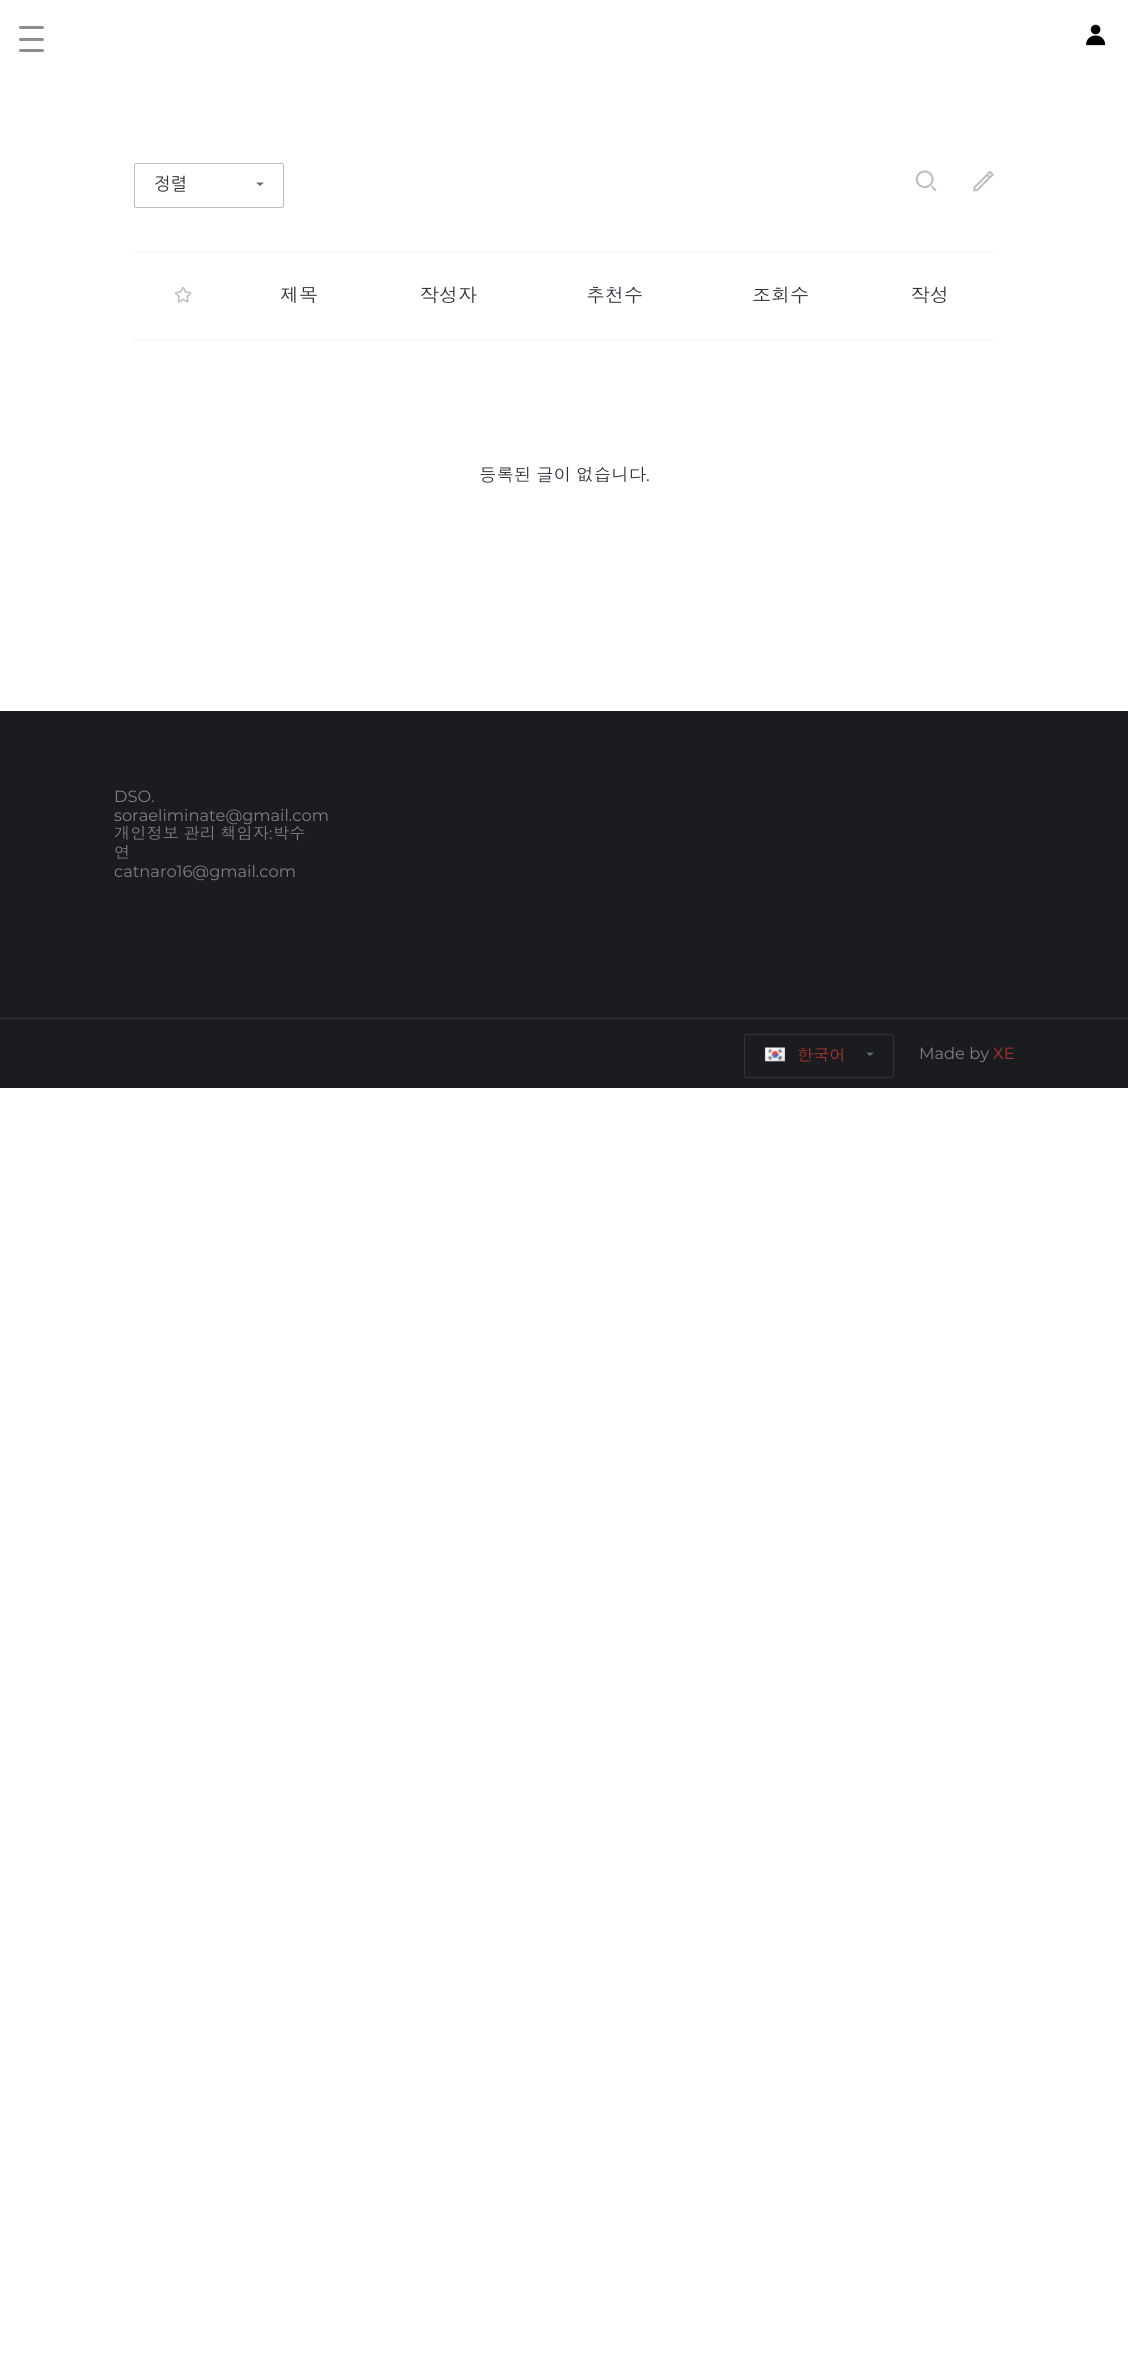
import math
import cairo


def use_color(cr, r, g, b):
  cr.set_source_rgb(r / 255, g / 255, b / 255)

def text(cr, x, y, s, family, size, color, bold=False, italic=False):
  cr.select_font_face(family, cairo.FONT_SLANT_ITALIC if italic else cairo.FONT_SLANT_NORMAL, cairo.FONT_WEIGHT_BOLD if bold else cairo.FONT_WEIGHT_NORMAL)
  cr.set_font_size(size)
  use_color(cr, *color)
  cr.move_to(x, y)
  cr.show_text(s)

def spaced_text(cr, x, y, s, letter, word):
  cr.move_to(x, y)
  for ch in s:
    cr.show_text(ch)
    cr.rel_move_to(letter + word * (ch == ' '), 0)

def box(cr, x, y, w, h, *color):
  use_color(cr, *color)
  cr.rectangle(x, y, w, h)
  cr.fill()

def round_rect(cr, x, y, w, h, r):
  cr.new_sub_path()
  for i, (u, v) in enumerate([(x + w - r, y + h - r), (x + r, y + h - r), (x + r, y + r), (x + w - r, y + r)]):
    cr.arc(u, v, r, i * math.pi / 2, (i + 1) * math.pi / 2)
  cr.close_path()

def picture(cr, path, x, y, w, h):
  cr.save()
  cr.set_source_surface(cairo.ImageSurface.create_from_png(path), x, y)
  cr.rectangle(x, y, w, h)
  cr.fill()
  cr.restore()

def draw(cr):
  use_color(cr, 255, 255, 255)
  cr.paint()
  use_color(cr, 141, 141, 141)
  round_rect(cr, 19, 26, 25, 3, 1.5)
  cr.fill()
  round_rect(cr, 19, 38, 25, 3, 1.5)
  cr.fill()
  round_rect(cr, 19, 49, 25, 3, 1.5)
  cr.fill()
  picture(cr, "img_01.png", 1086, 24, 20, 22)
  round_rect(cr, 134.5, 163.5, 149, 44, 2)
  use_color(cr, 187, 188, 191)
  cr.set_line_width(1)
  cr.stroke()
  use_color(cr, 101, 105, 115)
  cr.new_path()
  cr.move_to(256, 182.5)
  cr.line_to(264, 182.5)
  cr.line_to(260, 186)
  cr.close_path()
  cr.fill()
  picture(cr, "img_02.png", 915, 170, 22, 21)
  picture(cr, "img_03.png", 973, 171, 21, 21)
  box(cr, 134, 251, 862, 1, 244, 244, 244)
  picture(cr, "img_04.png", 175, 287, 17, 16)
  box(cr, 133, 339, 863, 1, 244, 244, 244)
  box(cr, 0, 711, 1128, 377, 27, 28, 31)
  box(cr, 0, 1018, 1128, 1, 51, 51, 51)
  round_rect(cr, 744.5, 1034.5, 149, 43, 2)
  cr.stroke()
  picture(cr, "img_05.png", 764, 1047, 21, 15)
  use_color(cr, 101, 105, 115)
  cr.new_path()
  cr.move_to(866, 1052.5)
  cr.line_to(874, 1052.5)
  cr.line_to(870, 1056)
  cr.close_path()
  cr.fill()
  text(cr, 154, 190, "정렬", "NanumGothic", 17.5, (51, 51, 51))
  text(cr, 280, 302, "제목", "Dotum", 19, (44, 46, 55))
  text(cr, 420, 302, "작성자", "Dotum", 19, (44, 46, 55))
  text(cr, 586, 302, "추천수", "Dotum", 19, (44, 46, 55))
  text(cr, 752, 302, "조회수", "Dotum", 19, (44, 46, 55))
  text(cr, 911, 302, "작성", "Dotum", 19, (44, 46, 55))
  cr.set_font_size(17.5)
  spaced_text(cr, 479, 481, "등록된 글이 없습니다", 0, -1)
  text(cr, 646, 481, ".", "Montserrat", 17.5, (44, 46, 55))
  text(cr, 114, 802, "DSO.", "Montserrat", 16.25, (128, 128, 128))
  text(cr, 114, 821, "soraeliminate@gmail.com", "Montserrat", 16.25, (128, 128, 128))
  cr.select_font_face("Dotum")
  spaced_text(cr, 114, 839, "개인정보 관리 책임자", 0, -1)
  text(cr, 269, 839, ":", "Montserrat", 16.25, (128, 128, 128))
  text(cr, 273, 839, "박수", "Dotum", 16.25, (128, 128, 128))
  text(cr, 114, 858, "연", "Dotum", 16.25, (128, 128, 128))
  text(cr, 114, 877, "catnaro16@gmail.com", "Montserrat", 16.25, (128, 128, 128))
  text(cr, 797, 1061, "한국어", "Dotum", 16.25, (175, 51, 51))
  text(cr, 919, 1059, "Made by", "Montserrat", 16.25, (128, 128, 128))
  text(cr, 993, 1059, "XE", "Montserrat", 16.25, (175, 51, 51))


surface = cairo.ImageSurface(cairo.FORMAT_RGB24, 1128, 2375)
cr = cairo.Context(surface)
options = cairo.FontOptions()
options.set_hint_metrics(cairo.HINT_METRICS_OFF)
options.set_hint_style(cairo.HINT_STYLE_NONE)
cr.set_font_options(options)
cr.set_miter_limit(4)
draw(cr)
surface.write_to_png("out.png")
